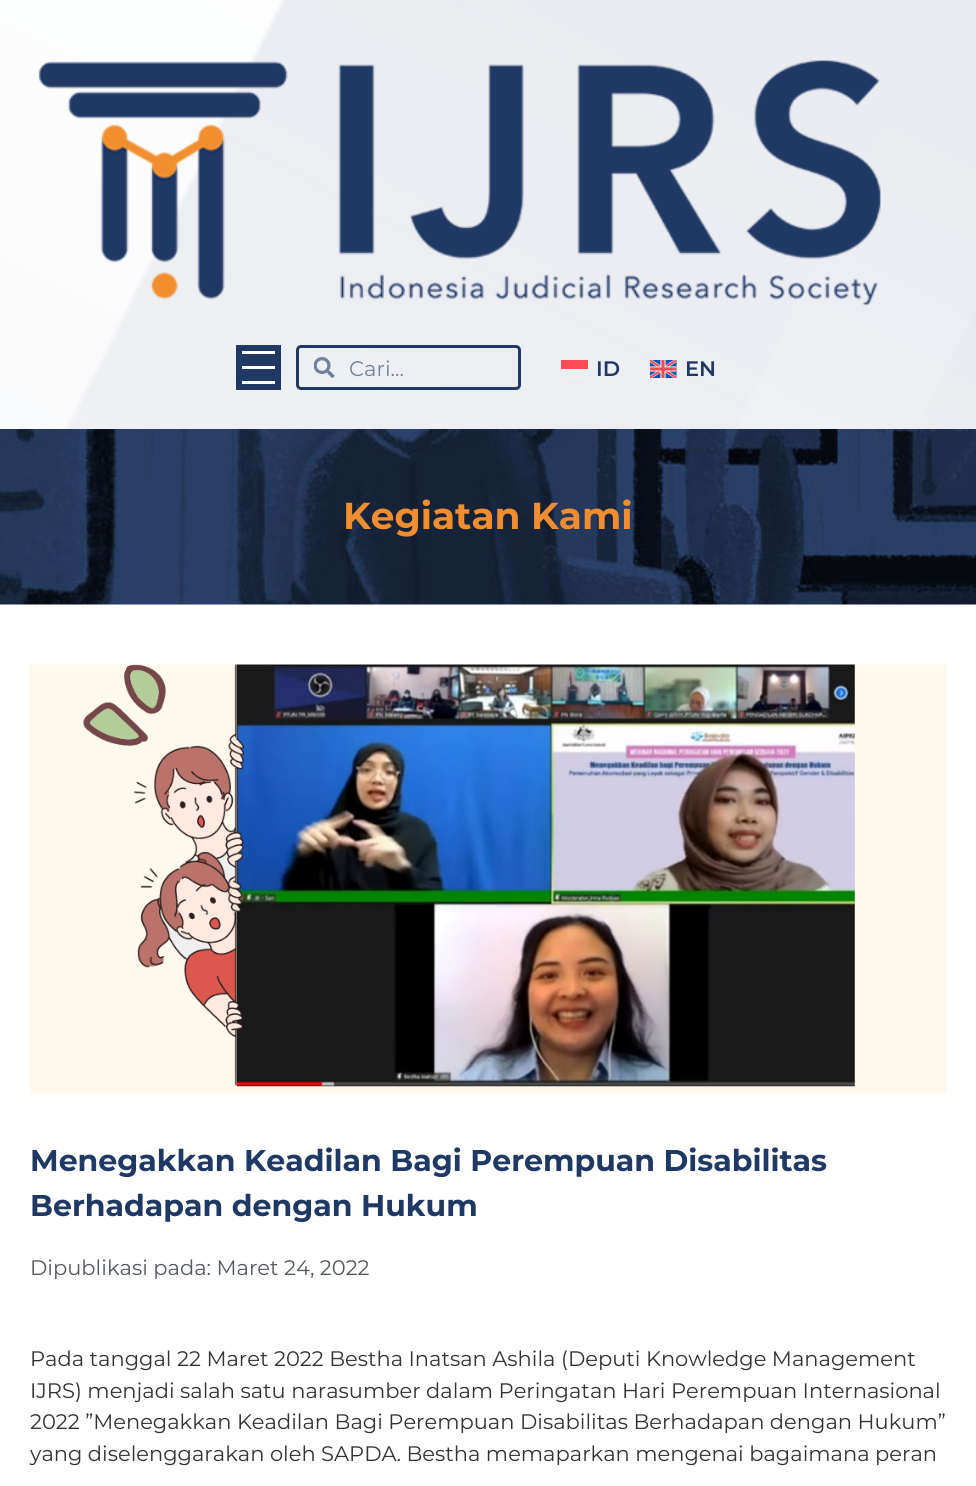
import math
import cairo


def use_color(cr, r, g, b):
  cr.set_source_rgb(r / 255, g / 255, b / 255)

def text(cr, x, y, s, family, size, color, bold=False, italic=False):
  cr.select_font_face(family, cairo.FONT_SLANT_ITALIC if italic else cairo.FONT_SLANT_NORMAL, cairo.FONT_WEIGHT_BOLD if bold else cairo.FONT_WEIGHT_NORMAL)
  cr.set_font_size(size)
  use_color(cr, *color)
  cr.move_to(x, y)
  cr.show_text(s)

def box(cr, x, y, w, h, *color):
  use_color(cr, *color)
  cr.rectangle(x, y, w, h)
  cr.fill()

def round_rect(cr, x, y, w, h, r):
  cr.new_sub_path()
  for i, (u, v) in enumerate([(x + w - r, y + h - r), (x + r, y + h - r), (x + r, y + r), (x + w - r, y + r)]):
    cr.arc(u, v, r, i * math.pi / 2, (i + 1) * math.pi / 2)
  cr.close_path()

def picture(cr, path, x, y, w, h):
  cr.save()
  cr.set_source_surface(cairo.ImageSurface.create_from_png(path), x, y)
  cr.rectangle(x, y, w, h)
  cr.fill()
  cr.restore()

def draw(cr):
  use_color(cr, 255, 255, 255)
  cr.paint()
  picture(cr, "img_01.png", 0, 0, 976, 429)
  picture(cr, "img_02.png", 38, 60, 843, 245)
  box(cr, 236, 345, 45, 45, 32, 56, 100)
  box(cr, 242, 366, 33, 3, 255, 255, 255)
  box(cr, 242, 351, 33, 3, 255, 255, 255)
  box(cr, 242, 381, 33, 3, 255, 255, 255)
  round_rect(cr, 297.5, 346.5, 222, 42, 3.5)
  use_color(cr, 32, 56, 100)
  cr.set_line_width(3)
  cr.stroke()
  picture(cr, "img_03.png", 314, 357, 21, 21)
  box(cr, 561, 360, 27, 9, 255, 75, 85)
  box(cr, 561, 369, 27, 9, 240, 240, 240)
  picture(cr, "img_04.png", 650, 360, 27, 18)
  picture(cr, "img_05.png", 0, 429, 976, 176)
  picture(cr, "img_06.png", 30, 664, 917, 430)
  text(cr, 349, 376, "Cari...", "Montserrat", 21, (114, 129, 157))
  text(cr, 596, 376, "ID", "Montserrat SemiBold", 21, (32, 56, 100))
  text(cr, 685, 376, "EN", "Montserrat SemiBold", 21, (32, 56, 100))
  text(cr, 343, 529, "Kegiatan Kami", "Montserrat", 37.5, (239, 141, 48), bold=True)
  text(cr, 30, 1171, "Menegakkan Keadilan Bagi Perempuan Disabilitas", "Montserrat", 30, (32, 56, 100), bold=True)
  text(cr, 30, 1216, "Berhadapan dengan Hukum", "Montserrat", 30, (32, 56, 100), bold=True)
  text(cr, 30, 1275, "Dipublikasi pada: Maret 24, 2022", "Montserrat", 21, (84, 89, 95))
  text(cr, 30, 1366, "Pada tanggal 22 Maret 2022 Bestha Inatsan Ashila (Deputi Knowledge Management", "Montserrat", 21, (51, 51, 51))
  text(cr, 30, 1398, "IJRS) menjadi salah satu narasumber dalam Peringatan Hari Perempuan Internasional", "Montserrat", 21, (51, 51, 51))
  text(cr, 30, 1429, "2022 ”Menegakkan Keadilan Bagi Perempuan Disabilitas Berhadapan dengan Hukum”", "Montserrat", 21, (51, 51, 51))
  text(cr, 30, 1461, "yang diselenggarakan oleh SAPDA. Bestha memaparkan mengenai bagaimana peran", "Montserrat", 21, (51, 51, 51))


surface = cairo.ImageSurface(cairo.FORMAT_RGB24, 976, 1486)
cr = cairo.Context(surface)
options = cairo.FontOptions()
options.set_hint_metrics(cairo.HINT_METRICS_OFF)
options.set_hint_style(cairo.HINT_STYLE_NONE)
cr.set_font_options(options)
cr.set_miter_limit(4)
draw(cr)
surface.write_to_png("out.png")
